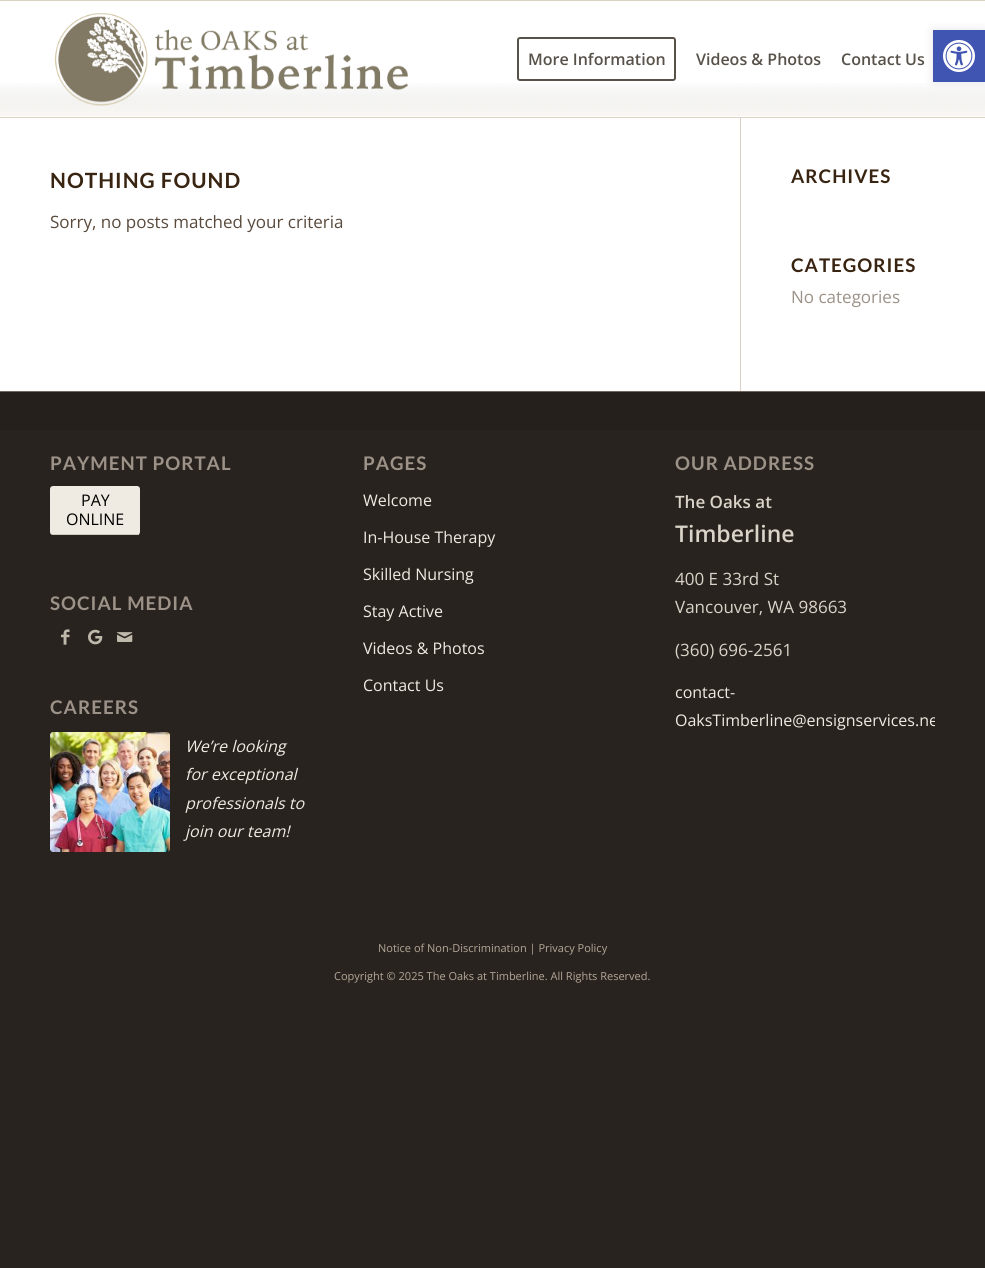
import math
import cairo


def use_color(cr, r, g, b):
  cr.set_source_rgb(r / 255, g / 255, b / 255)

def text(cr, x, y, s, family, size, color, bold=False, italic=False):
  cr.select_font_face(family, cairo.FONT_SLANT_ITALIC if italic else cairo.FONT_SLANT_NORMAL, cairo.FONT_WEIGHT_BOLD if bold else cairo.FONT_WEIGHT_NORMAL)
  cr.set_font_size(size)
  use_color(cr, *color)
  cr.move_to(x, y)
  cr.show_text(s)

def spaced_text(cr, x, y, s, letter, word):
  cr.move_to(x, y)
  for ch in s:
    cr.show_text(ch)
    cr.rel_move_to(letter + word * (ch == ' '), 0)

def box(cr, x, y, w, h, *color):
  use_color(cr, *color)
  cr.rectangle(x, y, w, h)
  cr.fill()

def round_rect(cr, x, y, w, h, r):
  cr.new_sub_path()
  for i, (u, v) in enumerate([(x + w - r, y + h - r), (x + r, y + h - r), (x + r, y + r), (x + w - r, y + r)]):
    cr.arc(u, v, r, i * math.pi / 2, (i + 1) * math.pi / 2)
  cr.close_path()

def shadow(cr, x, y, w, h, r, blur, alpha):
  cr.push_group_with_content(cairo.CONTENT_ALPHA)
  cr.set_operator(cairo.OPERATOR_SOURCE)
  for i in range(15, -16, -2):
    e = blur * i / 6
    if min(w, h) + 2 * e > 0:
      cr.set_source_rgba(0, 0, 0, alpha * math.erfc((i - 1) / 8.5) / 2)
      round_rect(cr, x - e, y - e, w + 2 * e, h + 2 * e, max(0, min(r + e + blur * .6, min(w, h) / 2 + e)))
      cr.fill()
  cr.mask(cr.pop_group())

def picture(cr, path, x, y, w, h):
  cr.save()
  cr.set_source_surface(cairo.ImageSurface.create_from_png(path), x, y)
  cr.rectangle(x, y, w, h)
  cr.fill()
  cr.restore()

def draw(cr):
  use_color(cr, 41, 35, 31)
  cr.paint()
  box(cr, 0, 118, 985, 273, 255, 255, 255)
  box(cr, 0, 1, 985, 111, 255, 255, 255)
  box(cr, 740, 116, 1, 275, 217, 210, 195)
  picture(cr, "img_01.png", 0, 83, 985, 35)
  box(cr, 0, 0, 985, 1, 217, 210, 195)
  picture(cr, "img_02.png", 54, 13, 354, 93)
  round_rect(cr, 518, 38, 157, 42, 2)
  use_color(cr, 87, 81, 73)
  cr.stroke()
  box(cr, 0, 392, 985, 38, 37, 32, 28)
  box(cr, 0, 391, 985, 1, 112, 104, 94)
  use_color(cr, 240, 235, 226)
  round_rect(cr, 50, 486, 90, 49, 3)
  cr.fill()
  box(cr, 52, 534, 87, 1, 208, 201, 192)
  picture(cr, "img_03.png", 61, 629, 9, 16)
  picture(cr, "img_04.png", 88, 629, 15, 16)
  picture(cr, "img_05.png", 117, 632, 16, 10)
  picture(cr, "img_06.png", 50, 732, 120, 120)
  use_color(cr, 0, 0, 0)
  shadow(cr, 933, 30, 52, 52, 0, 5, 0.1)
  box(cr, 933, 30, 52, 52, 64, 84, 178)
  picture(cr, "img_07.png", 943, 40, 32, 32)
  text(cr, 528, 65, "More Information", "Open Sans SemiBold", 16, (87, 81, 73))
  text(cr, 696, 65, "Videos & Photos", "Open Sans SemiBold", 16, (87, 81, 73))
  text(cr, 841, 65, "Contact Us", "Open Sans SemiBold", 16, (87, 81, 73))
  cr.select_font_face("Lato", cairo.FONT_SLANT_NORMAL, cairo.FONT_WEIGHT_BOLD)
  cr.set_font_size(21)
  use_color(cr, 56, 36, 16)
  spaced_text(cr, 50, 188, "NOTHING FOUND", 1, 0)
  text(cr, 50, 228, "Sorry, no posts matched your criteria", "Open Sans", 17, (89, 74, 60))
  cr.select_font_face("Lato", cairo.FONT_SLANT_NORMAL, cairo.FONT_WEIGHT_BOLD)
  cr.set_font_size(18.75)
  use_color(cr, 56, 36, 16)
  spaced_text(cr, 791, 183, "ARCHIVES", 1, 0)
  spaced_text(cr, 791, 272, "CATEGORIES", 1, 0)
  text(cr, 791, 303, "No categories", "Open Sans", 17, (156, 146, 136))
  cr.select_font_face("Lato", cairo.FONT_SLANT_NORMAL, cairo.FONT_WEIGHT_BOLD)
  cr.set_font_size(18.75)
  spaced_text(cr, 50, 470, "PAYMENT PORTAL", 1, 0)
  text(cr, 81, 506, "PAY", "Open Sans", 16, (0, 0, 0))
  text(cr, 66, 525, "ONLINE", "Open Sans", 16, (0, 0, 0))
  cr.select_font_face("Lato", cairo.FONT_SLANT_NORMAL, cairo.FONT_WEIGHT_BOLD)
  cr.set_font_size(18.75)
  use_color(cr, 156, 146, 136)
  spaced_text(cr, 50, 610, "SOCIAL MEDIA", 1, 0)
  spaced_text(cr, 50, 714, "CAREERS", 1, 0)
  text(cr, 185, 752, "We’re looking", "Open Sans", 16, (240, 235, 226), italic=True)
  text(cr, 185, 780, "for exceptional", "Open Sans", 16, (240, 235, 226), italic=True)
  text(cr, 185, 809, "professionals to", "Open Sans", 16, (240, 235, 226), italic=True)
  text(cr, 185, 837, "join our team!", "Open Sans", 16, (240, 235, 226), italic=True)
  cr.select_font_face("Lato", cairo.FONT_SLANT_NORMAL, cairo.FONT_WEIGHT_BOLD)
  cr.set_font_size(18.75)
  use_color(cr, 156, 146, 136)
  spaced_text(cr, 363, 470, "PAGES", 1, 0)
  text(cr, 363, 506, "Welcome", "Open Sans", 16, (240, 235, 226))
  text(cr, 363, 543, "In-House Therapy", "Open Sans", 16, (240, 235, 226))
  text(cr, 363, 580, "Skilled Nursing", "Open Sans", 16, (240, 235, 226))
  text(cr, 363, 617, "Stay Active", "Open Sans", 16, (240, 235, 226))
  text(cr, 363, 654, "Videos & Photos", "Open Sans", 16, (240, 235, 226))
  text(cr, 363, 691, "Contact Us", "Open Sans", 16, (240, 235, 226))
  cr.select_font_face("Lato", cairo.FONT_SLANT_NORMAL, cairo.FONT_WEIGHT_BOLD)
  cr.set_font_size(18.75)
  use_color(cr, 156, 146, 136)
  spaced_text(cr, 675, 470, "OUR ADDRESS", 1, 0)
  text(cr, 675, 508, "The Oaks at", "Open Sans SemiBold", 17, (217, 211, 200))
  text(cr, 675, 542, "Timberline", "Open Sans SemiBold", 23, (217, 211, 200))
  text(cr, 675, 585, "400 E 33rd St", "Open Sans", 17, (217, 211, 200))
  text(cr, 675, 613, "Vancouver, WA 98663", "Open Sans", 17, (217, 211, 200))
  text(cr, 675, 656, "(360) 696-2561", "Open Sans", 17, (217, 211, 200))
  text(cr, 675, 698, "contact-", "Open Sans", 16, (240, 235, 226))
  cr.save()
  cr.rectangle(675, 437, 260, 312)
  cr.clip()
  text(cr, 675, 726, "OaksTimberline@ensignservices.ne", "Open Sans", 16, (240, 235, 226))
  cr.restore()
  text(cr, 378, 952, "Notice of Non-Discrimination | Privacy Policy", "Open Sans", 11, (179, 168, 152))
  text(cr, 334, 980, "Copyright © 2025 The Oaks at Timberline. All Rights Reserved.", "Open Sans", 11, (179, 168, 152))


surface = cairo.ImageSurface(cairo.FORMAT_RGB24, 985, 1268)
cr = cairo.Context(surface)
options = cairo.FontOptions()
options.set_hint_metrics(cairo.HINT_METRICS_OFF)
options.set_hint_style(cairo.HINT_STYLE_NONE)
cr.set_font_options(options)
cr.set_miter_limit(4)
draw(cr)
surface.write_to_png("out.png")
